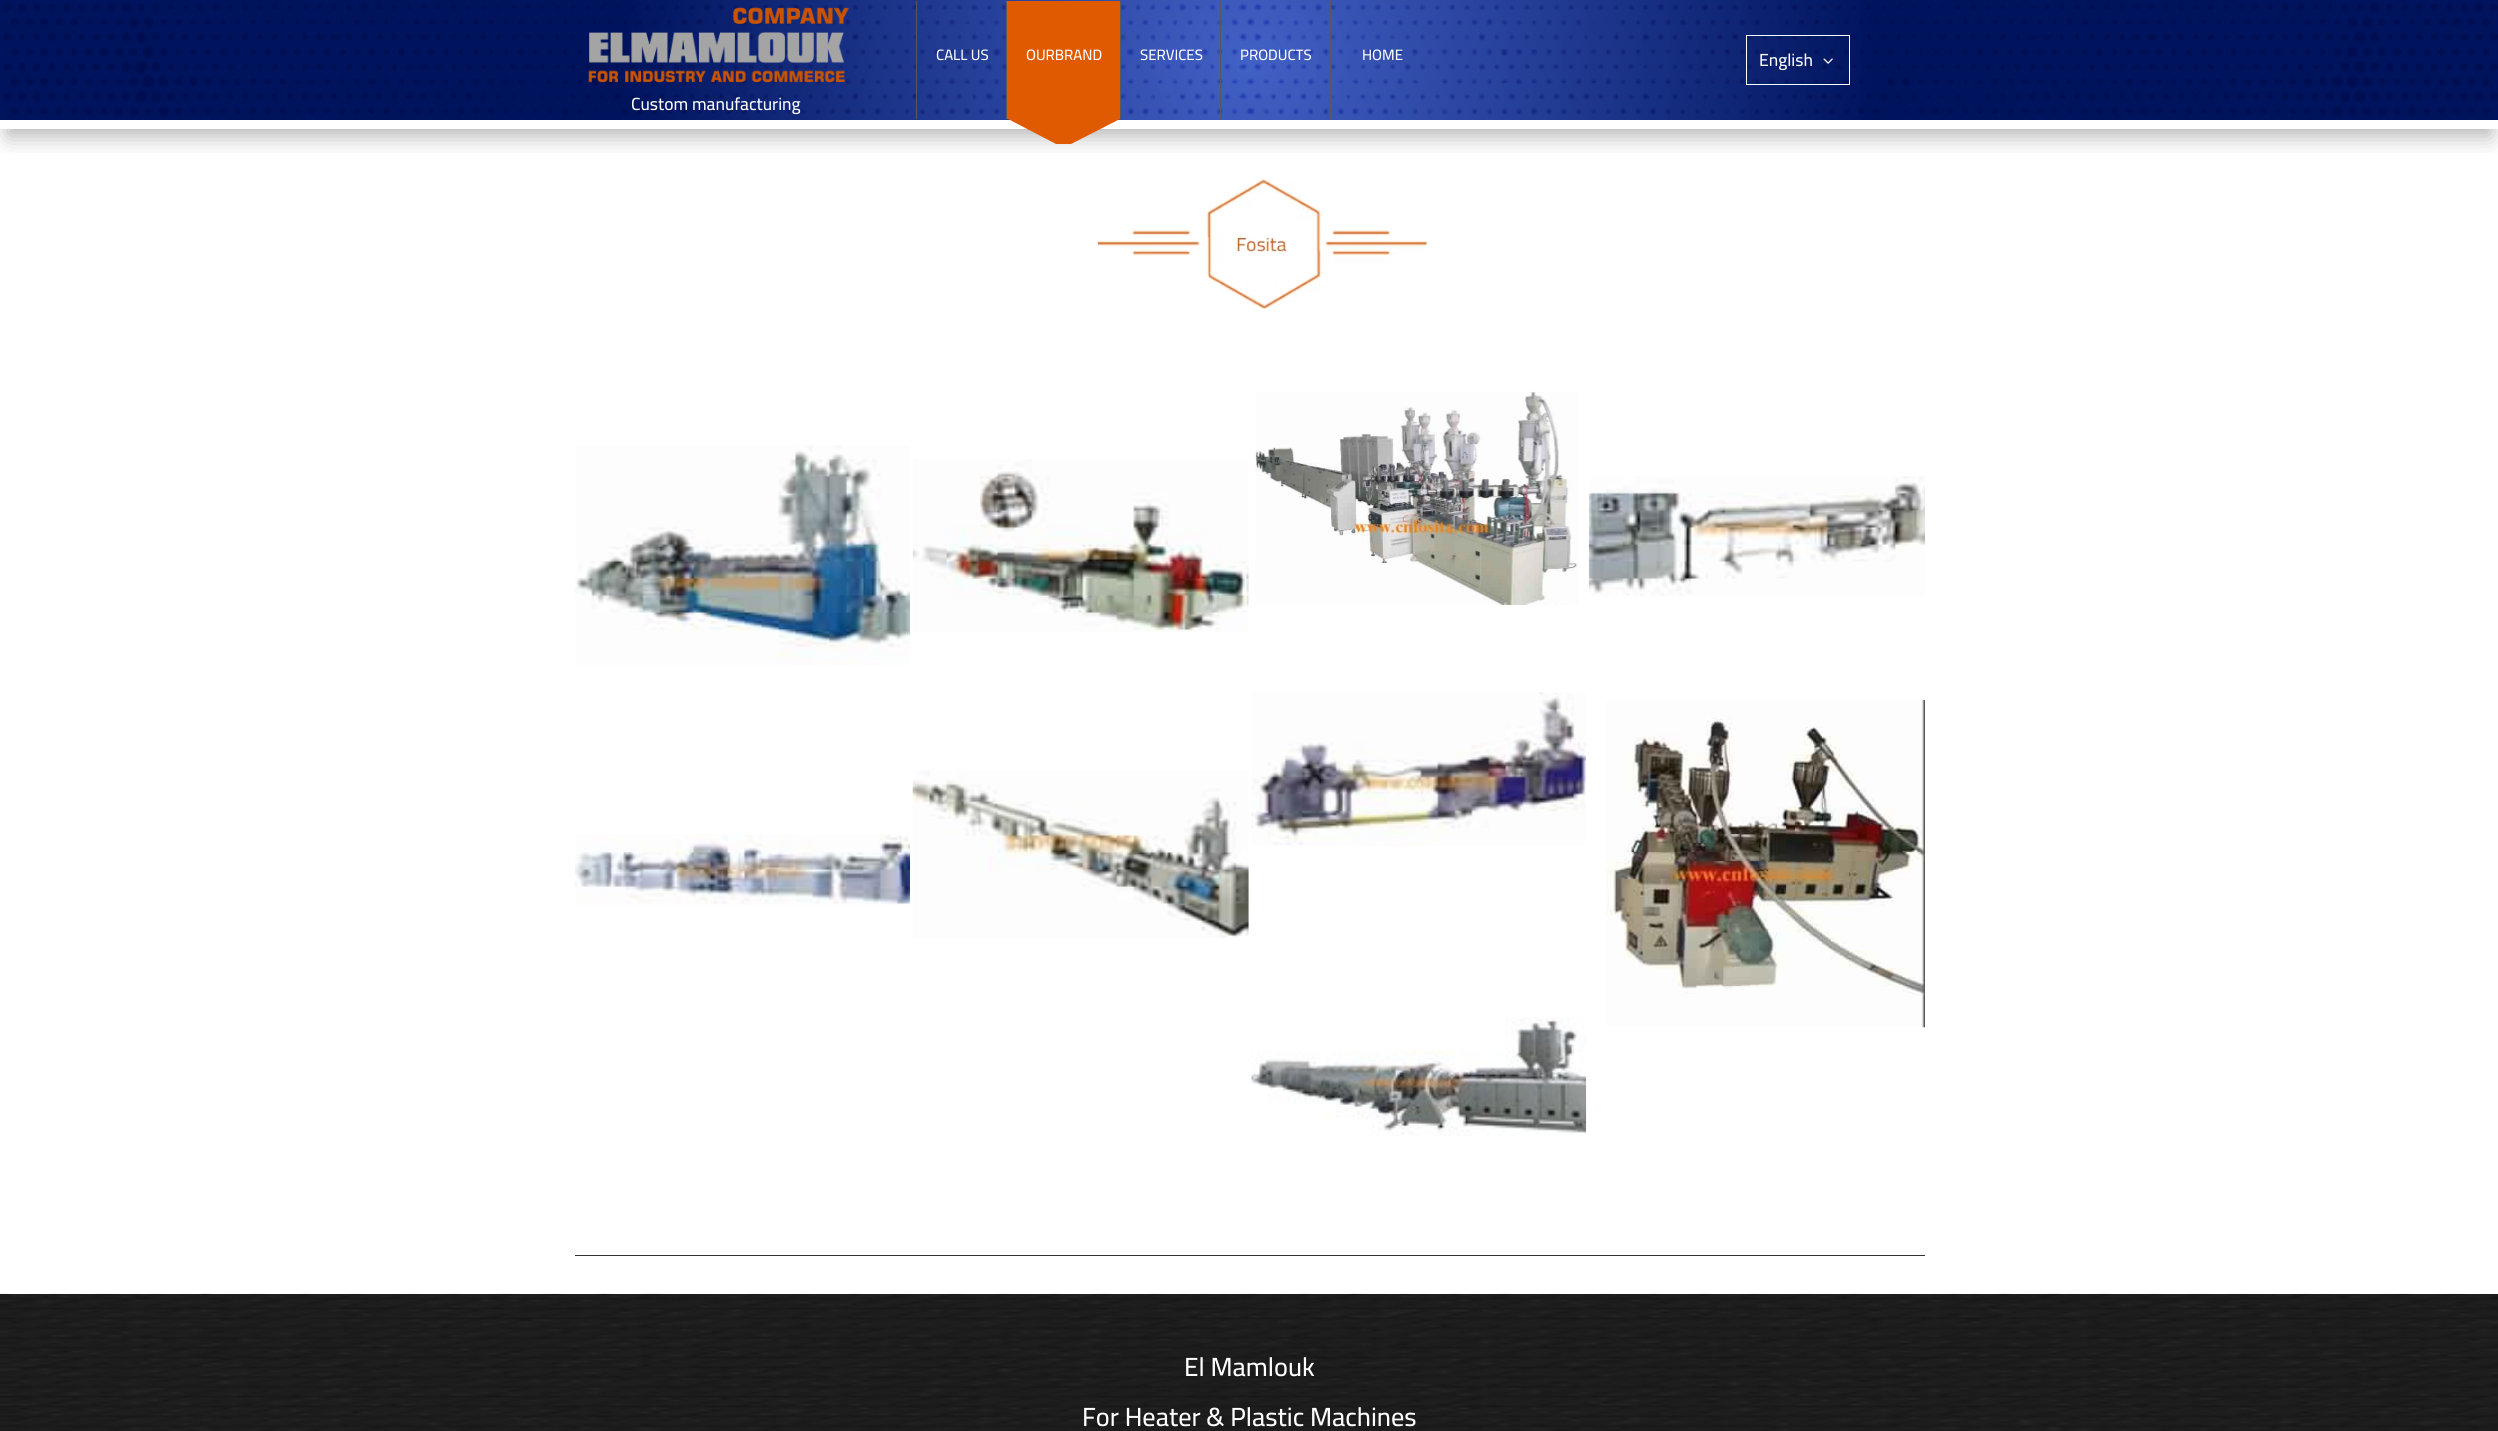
import math
import cairo


def use_color(cr, r, g, b):
  cr.set_source_rgb(r / 255, g / 255, b / 255)

def text(cr, x, y, s, family, size, color, bold=False, italic=False):
  cr.select_font_face(family, cairo.FONT_SLANT_ITALIC if italic else cairo.FONT_SLANT_NORMAL, cairo.FONT_WEIGHT_BOLD if bold else cairo.FONT_WEIGHT_NORMAL)
  cr.set_font_size(size)
  use_color(cr, *color)
  cr.move_to(x, y)
  cr.show_text(s)

def box(cr, x, y, w, h, *color):
  use_color(cr, *color)
  cr.rectangle(x, y, w, h)
  cr.fill()

def round_rect(cr, x, y, w, h, r):
  cr.new_sub_path()
  for i, (u, v) in enumerate([(x + w - r, y + h - r), (x + r, y + h - r), (x + r, y + r), (x + w - r, y + r)]):
    cr.arc(u, v, r, i * math.pi / 2, (i + 1) * math.pi / 2)
  cr.close_path()

def shadow(cr, x, y, w, h, r, blur, alpha):
  cr.push_group_with_content(cairo.CONTENT_ALPHA)
  cr.set_operator(cairo.OPERATOR_SOURCE)
  for i in range(15, -16, -2):
    e = blur * i / 6
    if min(w, h) + 2 * e > 0:
      cr.set_source_rgba(0, 0, 0, alpha * math.erfc((i - 1) / 8.5) / 2)
      round_rect(cr, x - e, y - e, w + 2 * e, h + 2 * e, max(0, min(r + e + blur * .6, min(w, h) / 2 + e)))
      cr.fill()
  cr.mask(cr.pop_group())

def picture(cr, path, x, y, w, h):
  cr.save()
  cr.set_source_surface(cairo.ImageSurface.create_from_png(path), x, y)
  cr.rectangle(x, y, w, h)
  cr.fill()
  cr.restore()

def draw(cr):
  use_color(cr, 255, 255, 255)
  cr.paint()
  cr.save()
  cr.rectangle(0, 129, 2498, 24)
  cr.clip()
  use_color(cr, 0, 0, 0)
  shadow(cr, 8, 23, 2483, 113, 0, 11, 0.3)
  cr.restore()
  picture(cr, "img_01.png", 0, 0, 2498, 120)
  box(cr, 0, 128, 2498, 1, 255, 255, 255)
  box(cr, 916, 1, 1, 118, 89, 89, 89)
  box(cr, 1007, 1, 113, 118, 224, 90, 1)
  box(cr, 1006, 1, 1, 118, 89, 89, 89)
  use_color(cr, 224, 90, 1)
  cr.new_path()
  cr.move_to(1008, 119)
  cr.line_to(1120, 119)
  cr.line_to(1071, 144)
  cr.line_to(1056, 144)
  cr.close_path()
  cr.fill()
  box(cr, 1120, 1, 1, 118, 89, 89, 89)
  box(cr, 1220, 1, 1, 118, 89, 89, 89)
  box(cr, 1330, 1, 1, 118, 89, 89, 89)
  cr.rectangle(1746.5, 35.5, 103, 49)
  use_color(cr, 255, 255, 255)
  cr.set_line_width(1)
  cr.stroke()
  picture(cr, "img_02.png", 1823, 58, 10, 6)
  picture(cr, "img_03.png", 588, 7, 262, 76)
  picture(cr, "img_04.png", 1097, 178, 331, 132)
  box(cr, 575, 1255, 1350, 1, 51, 51, 51)
  picture(cr, "img_05.png", 575, 445, 335, 220)
  picture(cr, "img_06.png", 912, 459, 337, 173)
  picture(cr, "img_07.png", 1255, 391, 324, 214)
  picture(cr, "img_08.png", 1588, 476, 337, 120)
  picture(cr, "img_09.png", 575, 834, 335, 71)
  picture(cr, "img_10.png", 912, 770, 337, 168)
  picture(cr, "img_11.png", 1251, 692, 336, 154)
  picture(cr, "img_12.png", 1606, 700, 319, 328)
  picture(cr, "img_13.png", 1251, 1017, 336, 119)
  box(cr, 0, 1294, 2498, 137, 31, 30, 30)
  picture(cr, "img_14.png", 0, 1293, 2498, 138)
  text(cr, 936, 60, "CALL US", "Cairo Medium", 15, (255, 255, 255))
  text(cr, 1026, 60, "OURBRAND", "Cairo Medium", 15, (255, 255, 255))
  text(cr, 1140, 60, "SERVICES", "Cairo Medium", 15, (255, 255, 255))
  text(cr, 1240, 60, "PRODUCTS", "Cairo Medium", 15, (255, 255, 255))
  text(cr, 1362, 60, "HOME", "Cairo Medium", 15, (255, 255, 255))
  text(cr, 1759, 66, "English", "Cairo Medium", 17.5, (255, 255, 255))
  text(cr, 631, 110, "Custom manufacturing", "Cairo Medium", 17.5, (255, 255, 255))
  text(cr, 1184, 1376, "El Mamlouk", "Cairo Medium", 26.25, (255, 255, 255))
  text(cr, 1082, 1426, "For Heater & Plastic Machines", "Cairo Medium", 26.25, (255, 255, 255))


surface = cairo.ImageSurface(cairo.FORMAT_RGB24, 2498, 1431)
cr = cairo.Context(surface)
options = cairo.FontOptions()
options.set_hint_metrics(cairo.HINT_METRICS_OFF)
options.set_hint_style(cairo.HINT_STYLE_NONE)
cr.set_font_options(options)
cr.set_miter_limit(4)
draw(cr)
surface.write_to_png("out.png")
